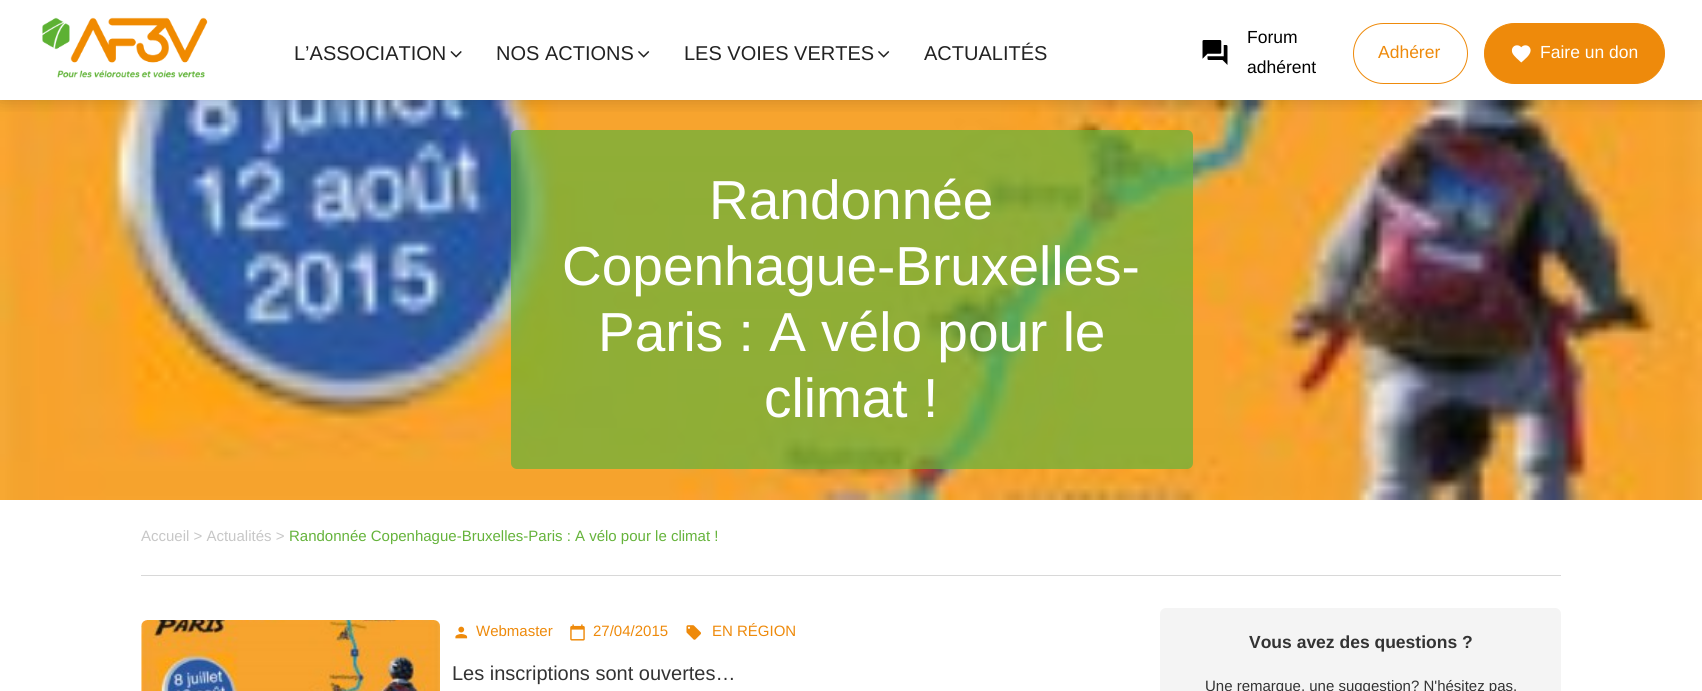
import math
import cairo


def use_color(cr, r, g, b):
  cr.set_source_rgb(r / 255, g / 255, b / 255)

def text(cr, x, y, s, family, size, color, bold=False, italic=False):
  cr.select_font_face(family, cairo.FONT_SLANT_ITALIC if italic else cairo.FONT_SLANT_NORMAL, cairo.FONT_WEIGHT_BOLD if bold else cairo.FONT_WEIGHT_NORMAL)
  cr.set_font_size(size)
  use_color(cr, *color)
  cr.move_to(x, y)
  cr.show_text(s)

def box(cr, x, y, w, h, *color):
  use_color(cr, *color)
  cr.rectangle(x, y, w, h)
  cr.fill()

def round_rect(cr, x, y, w, h, r):
  cr.new_sub_path()
  for i, (u, v) in enumerate([(x + w - r, y + h - r), (x + r, y + h - r), (x + r, y + r), (x + w - r, y + r)]):
    cr.arc(u, v, r, i * math.pi / 2, (i + 1) * math.pi / 2)
  cr.close_path()

def shadow(cr, x, y, w, h, r, blur, alpha):
  cr.push_group_with_content(cairo.CONTENT_ALPHA)
  cr.set_operator(cairo.OPERATOR_SOURCE)
  for i in range(15, -16, -2):
    e = blur * i / 6
    if min(w, h) + 2 * e > 0:
      cr.set_source_rgba(0, 0, 0, alpha * math.erfc((i - 1) / 8.5) / 2)
      round_rect(cr, x - e, y - e, w + 2 * e, h + 2 * e, max(0, min(r + e + blur * .6, min(w, h) / 2 + e)))
      cr.fill()
  cr.mask(cr.pop_group())

def picture(cr, path, x, y, w, h):
  cr.save()
  cr.set_source_surface(cairo.ImageSurface.create_from_png(path), x, y)
  cr.rectangle(x, y, w, h)
  cr.fill()
  cr.restore()

def draw(cr):
  use_color(cr, 255, 255, 255)
  cr.paint()
  picture(cr, "img_06.png", 0, 100, 1702, 400)
  cr.save()
  cr.rectangle(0, 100, 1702, 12)
  cr.clip()
  use_color(cr, 0, 0, 0)
  shadow(cr, 0, 0, 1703, 100, 0, 9, 0.2)
  cr.restore()
  picture(cr, "img_01.png", 42, 17, 166, 61)
  picture(cr, "img_02.png", 450, 51, 12, 7)
  picture(cr, "img_03.png", 638, 51, 12, 7)
  picture(cr, "img_03.png", 878, 51, 12, 7)
  picture(cr, "img_04.png", 1202, 40, 26, 25)
  round_rect(cr, 1353.5, 23.5, 114, 60, 30)
  use_color(cr, 238, 138, 11)
  cr.set_line_width(1)
  cr.stroke()
  round_rect(cr, 1484.5, 23.5, 180, 60, 30)
  cr.fill_preserve()
  cr.stroke()
  picture(cr, "img_05.png", 1511, 45, 20, 18)
  cr.set_source_rgba(0.396, 0.702, 0.231, 0.7)
  round_rect(cr, 511, 130, 682, 339, 6)
  cr.fill()
  box(cr, 141, 575, 1420, 1, 216, 216, 216)
  picture(cr, "img_07.png", 141, 620, 299, 71)
  picture(cr, "img_08.png", 455, 626, 13, 13)
  picture(cr, "img_09.png", 570, 624, 15, 17)
  picture(cr, "img_10.png", 686, 625, 15, 15)
  use_color(cr, 244, 244, 244)
  round_rect(cr, 1160, 608, 401, 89, 6)
  cr.fill()
  text(cr, 294, 60, "L’ASSOCIATION", "Liberation Sans", 20, (34, 34, 34))
  text(cr, 496, 60, "NOS ACTIONS", "Liberation Sans", 20, (34, 34, 34))
  text(cr, 684, 60, "LES VOIES VERTES", "Liberation Sans", 20, (34, 34, 34))
  text(cr, 924, 60, "ACTUALITÉS", "Liberation Sans", 20, (34, 34, 34))
  text(cr, 1247, 43, "Forum", "Liberation Sans", 17.5, (0, 0, 0))
  text(cr, 1247, 73, "adhérent", "Liberation Sans", 17.5, (0, 0, 0))
  text(cr, 1378, 58, "Adhérer", "Liberation Sans", 17.5, (238, 138, 11))
  text(cr, 1540, 58, "Faire un don", "Liberation Sans", 17.5, (255, 255, 255))
  text(cr, 709, 219, "Randonnée", "Liberation Sans", 55, (255, 255, 255))
  text(cr, 562, 285, "Copenhague-Bruxelles-", "Liberation Sans", 55, (255, 255, 255))
  text(cr, 598, 351, "Paris : A vélo pour le", "Liberation Sans", 55, (255, 255, 255))
  text(cr, 764, 417, "climat !", "Liberation Sans", 55, (255, 255, 255))
  text(cr, 141, 541, "Accueil > Actualités >", "Liberation Sans", 15, (199, 199, 199))
  text(cr, 289, 541, "Randonnée Copenhague-Bruxelles-Paris : A vélo pour le climat !", "Liberation Sans", 15, (101, 179, 59))
  text(cr, 476, 636, "Webmaster", "Liberation Sans", 15, (238, 138, 11))
  text(cr, 593, 636, "27/04/2015", "Liberation Sans", 15, (238, 138, 11))
  text(cr, 712, 636, "EN RÉGION", "Liberation Sans", 15, (238, 138, 11))
  text(cr, 452, 680, "Les inscriptions sont ouvertes…", "Liberation Sans", 20, (51, 51, 51))
  text(cr, 1249, 648, "Vous avez des questions ?", "Liberation Sans", 17.5, (51, 51, 51), bold=True)
  text(cr, 1205, 691, "Une remarque, une suggestion? N'hésitez pas.", "Liberation Sans", 15, (51, 51, 51))


surface = cairo.ImageSurface(cairo.FORMAT_RGB24, 1702, 691)
cr = cairo.Context(surface)
options = cairo.FontOptions()
options.set_hint_metrics(cairo.HINT_METRICS_OFF)
options.set_hint_style(cairo.HINT_STYLE_NONE)
cr.set_font_options(options)
cr.set_miter_limit(4)
draw(cr)
surface.write_to_png("out.png")
